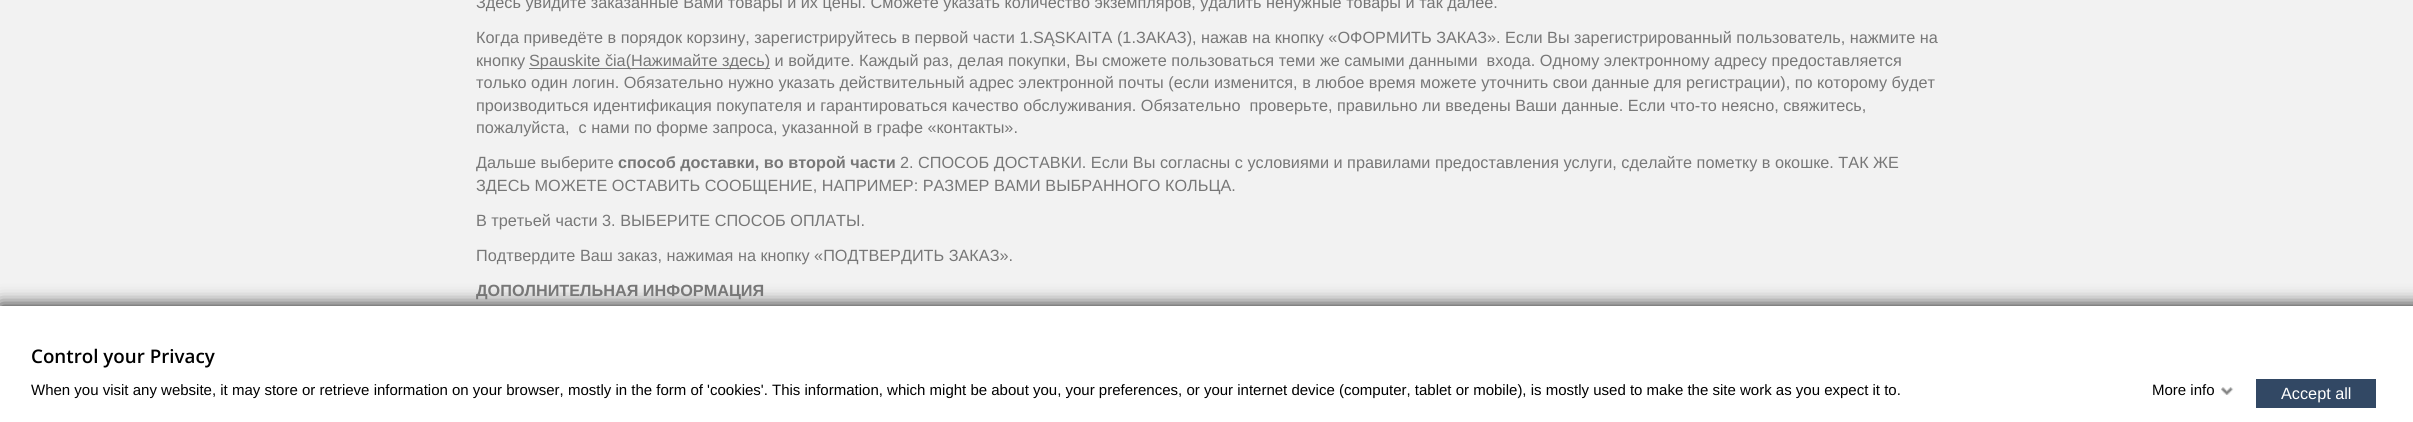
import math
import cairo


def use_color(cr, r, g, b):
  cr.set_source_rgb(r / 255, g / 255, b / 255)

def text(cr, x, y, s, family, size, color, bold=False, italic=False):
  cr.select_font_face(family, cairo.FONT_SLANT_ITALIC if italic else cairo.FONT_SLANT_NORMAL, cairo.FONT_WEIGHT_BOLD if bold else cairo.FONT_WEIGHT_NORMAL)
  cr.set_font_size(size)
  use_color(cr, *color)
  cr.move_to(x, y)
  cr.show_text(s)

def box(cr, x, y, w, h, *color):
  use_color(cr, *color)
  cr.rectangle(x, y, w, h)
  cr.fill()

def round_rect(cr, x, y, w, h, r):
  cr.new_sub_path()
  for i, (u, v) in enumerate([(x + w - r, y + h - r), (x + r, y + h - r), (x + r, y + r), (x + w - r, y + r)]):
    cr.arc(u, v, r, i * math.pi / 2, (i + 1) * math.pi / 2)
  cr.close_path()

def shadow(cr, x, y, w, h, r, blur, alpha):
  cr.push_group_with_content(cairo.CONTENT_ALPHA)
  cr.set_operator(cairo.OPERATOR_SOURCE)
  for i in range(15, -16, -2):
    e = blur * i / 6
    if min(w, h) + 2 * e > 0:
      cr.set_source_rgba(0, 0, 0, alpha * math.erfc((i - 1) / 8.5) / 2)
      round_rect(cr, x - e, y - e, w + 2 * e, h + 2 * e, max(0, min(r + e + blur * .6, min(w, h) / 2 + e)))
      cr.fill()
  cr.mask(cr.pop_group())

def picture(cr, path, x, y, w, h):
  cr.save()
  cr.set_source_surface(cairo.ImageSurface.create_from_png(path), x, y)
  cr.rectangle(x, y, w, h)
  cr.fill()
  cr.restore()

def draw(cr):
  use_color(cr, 242, 242, 242)
  cr.paint()
  box(cr, 529, 68, 241, 1, 119, 119, 119)
  use_color(cr, 18, 18, 18)
  shadow(cr, 0, 306, 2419, 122, 0, 9, 1)
  box(cr, 0, 306, 2413, 116, 255, 255, 255)
  picture(cr, "img_01.png", 2221, 387, 13, 8)
  box(cr, 2256, 379, 120, 29, 50, 72, 100)
  text(cr, 476, 8, "Здесь увидите заказанные Вами товары и их цены. Сможете указать количество экземпляров, удалить ненужные товары и так далее.", "Liberation Sans", 16.25, (119, 119, 119))
  text(cr, 476, 43, "Когда приведёте в порядок корзину, зарегистрируйтесь в первой части 1.SĄSKAITA (1.ЗАКАЗ), нажав на кнопку «ОФОРМИТЬ ЗАКАЗ». Если Вы зарегистрированный пользователь, нажмите на", "Liberation Sans", 16.25, (119, 119, 119))
  text(cr, 476, 66, "кнопку", "Liberation Sans", 16.25, (119, 119, 119))
  text(cr, 529, 66, "Spauskite čia(Нажимайте здесь) и войдите. Каждый раз, делая покупки, Вы сможете пользоваться теми же самыми данными  входа. Одному электронному адресу предоставляется", "Liberation Sans", 16.25, (119, 119, 119))
  text(cr, 476, 88, "только один логин. Обязательно нужно указать действительный адрес электронной почты (если изменится, в любое время можете уточнить свои данные для регистрации), по которому будет", "Liberation Sans", 16.25, (119, 119, 119))
  text(cr, 476, 111, "производиться идентификация покупателя и гарантироваться качество обслуживания. Обязательно  проверьте, правильно ли введены Ваши данные. Если что-то неясно, свяжитесь,", "Liberation Sans", 16.25, (119, 119, 119))
  text(cr, 476, 133, "пожалуйста,  с нами по форме запроса, указанной в графе «контакты».", "Liberation Sans", 16.25, (119, 119, 119))
  text(cr, 476, 168, "Дальше выберите", "Liberation Sans", 16.25, (119, 119, 119))
  text(cr, 618, 168, "способ доставки, во второй части", "Liberation Sans", 16.25, (119, 119, 119), bold=True)
  text(cr, 900, 168, "2. СПОСОБ ДОСТАВКИ. Если Вы согласны с условиями и правилами предоставления услуги, сделайте пометку в окошке. ТАК ЖЕ", "Liberation Sans", 16.25, (119, 119, 119))
  text(cr, 476, 191, "ЗДЕСЬ МОЖЕТЕ ОСТАВИТЬ СООБЩЕНИЕ, НАПРИМЕР: РАЗМЕР ВАМИ ВЫБРАННОГО КОЛЬЦА.", "Liberation Sans", 16.25, (119, 119, 119))
  text(cr, 476, 226, "В третьей части 3. ВЫБЕРИТЕ СПОСОБ ОПЛАТЫ.", "Liberation Sans", 16.25, (119, 119, 119))
  text(cr, 476, 261, "Подтвердите Ваш заказ, нажимая на кнопку «ПОДТВЕРДИТЬ ЗАКАЗ».", "Liberation Sans", 16.25, (119, 119, 119))
  text(cr, 476, 296, "ДОПОЛНИТЕЛЬНАЯ ИНФОРМАЦИЯ", "Liberation Sans", 16.25, (119, 119, 119), bold=True)
  text(cr, 31, 363, "Control your Privacy", "Open Sans SemiBold", 18.75, (0, 0, 0))
  text(cr, 31, 395, "When you visit any website, it may store or retrieve information on your browser, mostly in the form of 'cookies'. This information, which might be about you, your preferences, or your internet device (computer, tablet or mobile), is mostly used to make the site work as you expect it to.", "Liberation Sans", 15, (0, 0, 0))
  text(cr, 2152, 395, "More info", "Liberation Sans", 15, (0, 0, 0))
  text(cr, 2281, 399, "Accept all", "Liberation Sans", 16.25, (255, 255, 255))


surface = cairo.ImageSurface(cairo.FORMAT_RGB24, 2413, 422)
cr = cairo.Context(surface)
options = cairo.FontOptions()
options.set_hint_metrics(cairo.HINT_METRICS_OFF)
options.set_hint_style(cairo.HINT_STYLE_NONE)
cr.set_font_options(options)
cr.set_miter_limit(4)
draw(cr)
surface.write_to_png("out.png")
